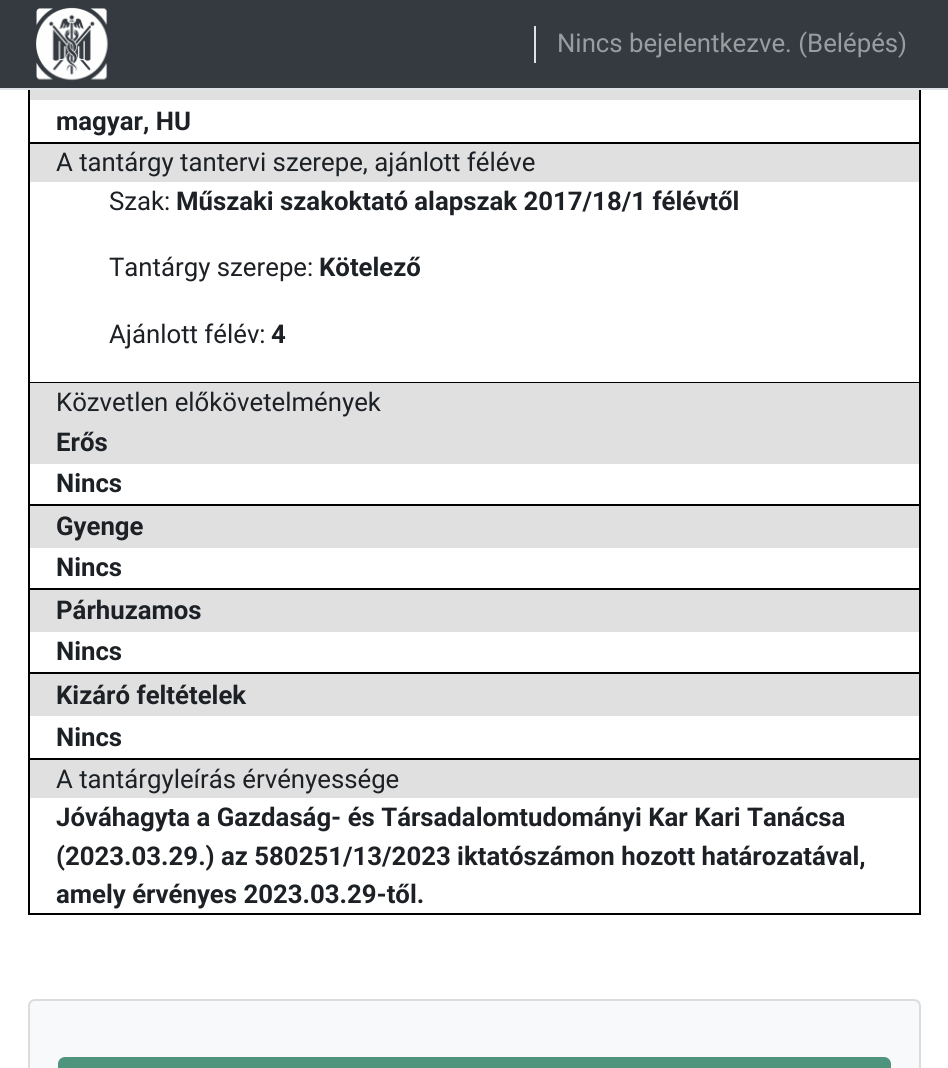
import math
import cairo


def use_color(cr, r, g, b):
  cr.set_source_rgb(r / 255, g / 255, b / 255)

def text(cr, x, y, s, family, size, color, bold=False, italic=False):
  cr.select_font_face(family, cairo.FONT_SLANT_ITALIC if italic else cairo.FONT_SLANT_NORMAL, cairo.FONT_WEIGHT_BOLD if bold else cairo.FONT_WEIGHT_NORMAL)
  cr.set_font_size(size)
  use_color(cr, *color)
  cr.move_to(x, y)
  cr.show_text(s)

def box(cr, x, y, w, h, *color):
  use_color(cr, *color)
  cr.rectangle(x, y, w, h)
  cr.fill()

def round_rect(cr, x, y, w, h, r):
  cr.new_sub_path()
  for i, (u, v) in enumerate([(x + w - r, y + h - r), (x + r, y + h - r), (x + r, y + r), (x + w - r, y + r)]):
    cr.arc(u, v, r, i * math.pi / 2, (i + 1) * math.pi / 2)
  cr.close_path()

def picture(cr, path, x, y, w, h):
  cr.save()
  cr.set_source_surface(cairo.ImageSurface.create_from_png(path), x, y)
  cr.rectangle(x, y, w, h)
  cr.fill()
  cr.restore()

def draw(cr):
  use_color(cr, 255, 255, 255)
  cr.paint()
  box(cr, 0, 0, 948, 88, 52, 58, 64)
  box(cr, 0, 88, 948, 2, 222, 226, 230)
  picture(cr, "img_01.png", 36, 7, 72, 74)
  box(cr, 534, 26, 2, 37, 222, 226, 230)
  box(cr, 919, 90, 2, 52, 0, 0, 0)
  box(cr, 28, 90, 2, 52, 0, 0, 0)
  box(cr, 30, 90, 889, 10, 224, 224, 224)
  box(cr, 28, 142, 893, 2, 0, 0, 0)
  box(cr, 919, 142, 2, 240, 0, 0, 0)
  box(cr, 28, 142, 2, 240, 0, 0, 0)
  box(cr, 30, 144, 889, 38, 224, 224, 224)
  box(cr, 28, 382, 893, 1, 0, 0, 0)
  box(cr, 919, 382, 2, 376, 0, 0, 0)
  box(cr, 28, 382, 2, 376, 0, 0, 0)
  box(cr, 30, 383, 889, 81, 224, 224, 224)
  box(cr, 30, 504, 889, 2, 0, 0, 0)
  box(cr, 30, 588, 889, 2, 0, 0, 0)
  box(cr, 30, 506, 889, 42, 224, 224, 224)
  box(cr, 30, 672, 889, 2, 0, 0, 0)
  box(cr, 30, 590, 889, 42, 224, 224, 224)
  box(cr, 30, 674, 889, 42, 224, 224, 224)
  cr.rectangle(29, 759, 891, 155)
  use_color(cr, 0, 0, 0)
  cr.stroke()
  box(cr, 30, 760, 889, 38, 224, 224, 224)
  use_color(cr, 248, 249, 250)
  round_rect(cr, 28, 999, 893, 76, 7)
  cr.fill()
  round_rect(cr, 29, 1000, 891, 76, 6)
  cr.set_source_rgba(0, 0, 0, 0.12)
  cr.stroke()
  use_color(cr, 79, 149, 125)
  round_rect(cr, 59, 1058, 831, 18, 6)
  cr.fill_preserve()
  cr.stroke()
  text(cr, 557, 52, "Nincs bejelentkezve. (Belépés", "Roboto", 25.75, (154, 157, 160))
  text(cr, 898, 52, ")", "Roboto", 25.75, (154, 157, 160))
  text(cr, 56, 130, "magyar, HU", "Roboto", 25.75, (29, 33, 37), bold=True)
  text(cr, 56, 171, "A tantárgy tantervi szerepe, ajánlott féléve", "Roboto", 25.75, (29, 33, 37))
  text(cr, 109, 210, "Szak:", "Roboto", 25.75, (29, 33, 37))
  text(cr, 176, 210, "Műszaki szakoktató alapszak 2017/18/1 félévtől", "Roboto", 25.75, (29, 33, 37), bold=True)
  text(cr, 109, 276, "Tantárgy szerepe:", "Roboto", 25.75, (29, 33, 37))
  text(cr, 319, 276, "Kötelező", "Roboto", 25.75, (29, 33, 37), bold=True)
  text(cr, 109, 343, "Ajánlott félév:", "Roboto", 25.75, (29, 33, 37))
  text(cr, 271, 343, "4", "Roboto", 25.75, (29, 33, 37), bold=True)
  text(cr, 56, 411, "Közvetlen előkövetelmények", "Roboto", 25.75, (29, 33, 37))
  text(cr, 56, 451, "Erős", "Roboto", 25.75, (29, 33, 37), bold=True)
  text(cr, 56, 492, "Nincs", "Roboto", 25.75, (29, 33, 37), bold=True)
  text(cr, 56, 535, "Gyenge", "Roboto", 25.75, (29, 33, 37), bold=True)
  text(cr, 56, 576, "Nincs", "Roboto", 25.75, (29, 33, 37), bold=True)
  text(cr, 56, 619, "Párhuzamos", "Roboto", 25.75, (29, 33, 37), bold=True)
  text(cr, 56, 660, "Nincs", "Roboto", 25.75, (29, 33, 37), bold=True)
  text(cr, 56, 704, "Kizáró feltételek", "Roboto", 25.75, (29, 33, 37), bold=True)
  text(cr, 56, 746, "Nincs", "Roboto", 25.75, (29, 33, 37), bold=True)
  text(cr, 56, 788, "A tantárgyleírás érvényessége", "Roboto", 25.75, (29, 33, 37))
  text(cr, 56, 826, "Jóváhagyta a Gazdaság- és Társadalomtudományi Kar Kari Tanácsa", "Roboto", 25.75, (29, 33, 37), bold=True)
  text(cr, 56, 865, "(2023.03.29.) az 580251/13/2023 iktatószámon hozott határozatával,", "Roboto", 25.75, (29, 33, 37), bold=True)
  text(cr, 56, 903, "amely érvényes 2023.03.29-től.", "Roboto", 25.75, (29, 33, 37), bold=True)


surface = cairo.ImageSurface(cairo.FORMAT_RGB24, 948, 1068)
cr = cairo.Context(surface)
options = cairo.FontOptions()
options.set_hint_metrics(cairo.HINT_METRICS_OFF)
options.set_hint_style(cairo.HINT_STYLE_NONE)
cr.set_font_options(options)
cr.set_miter_limit(4)
draw(cr)
surface.write_to_png("out.png")
